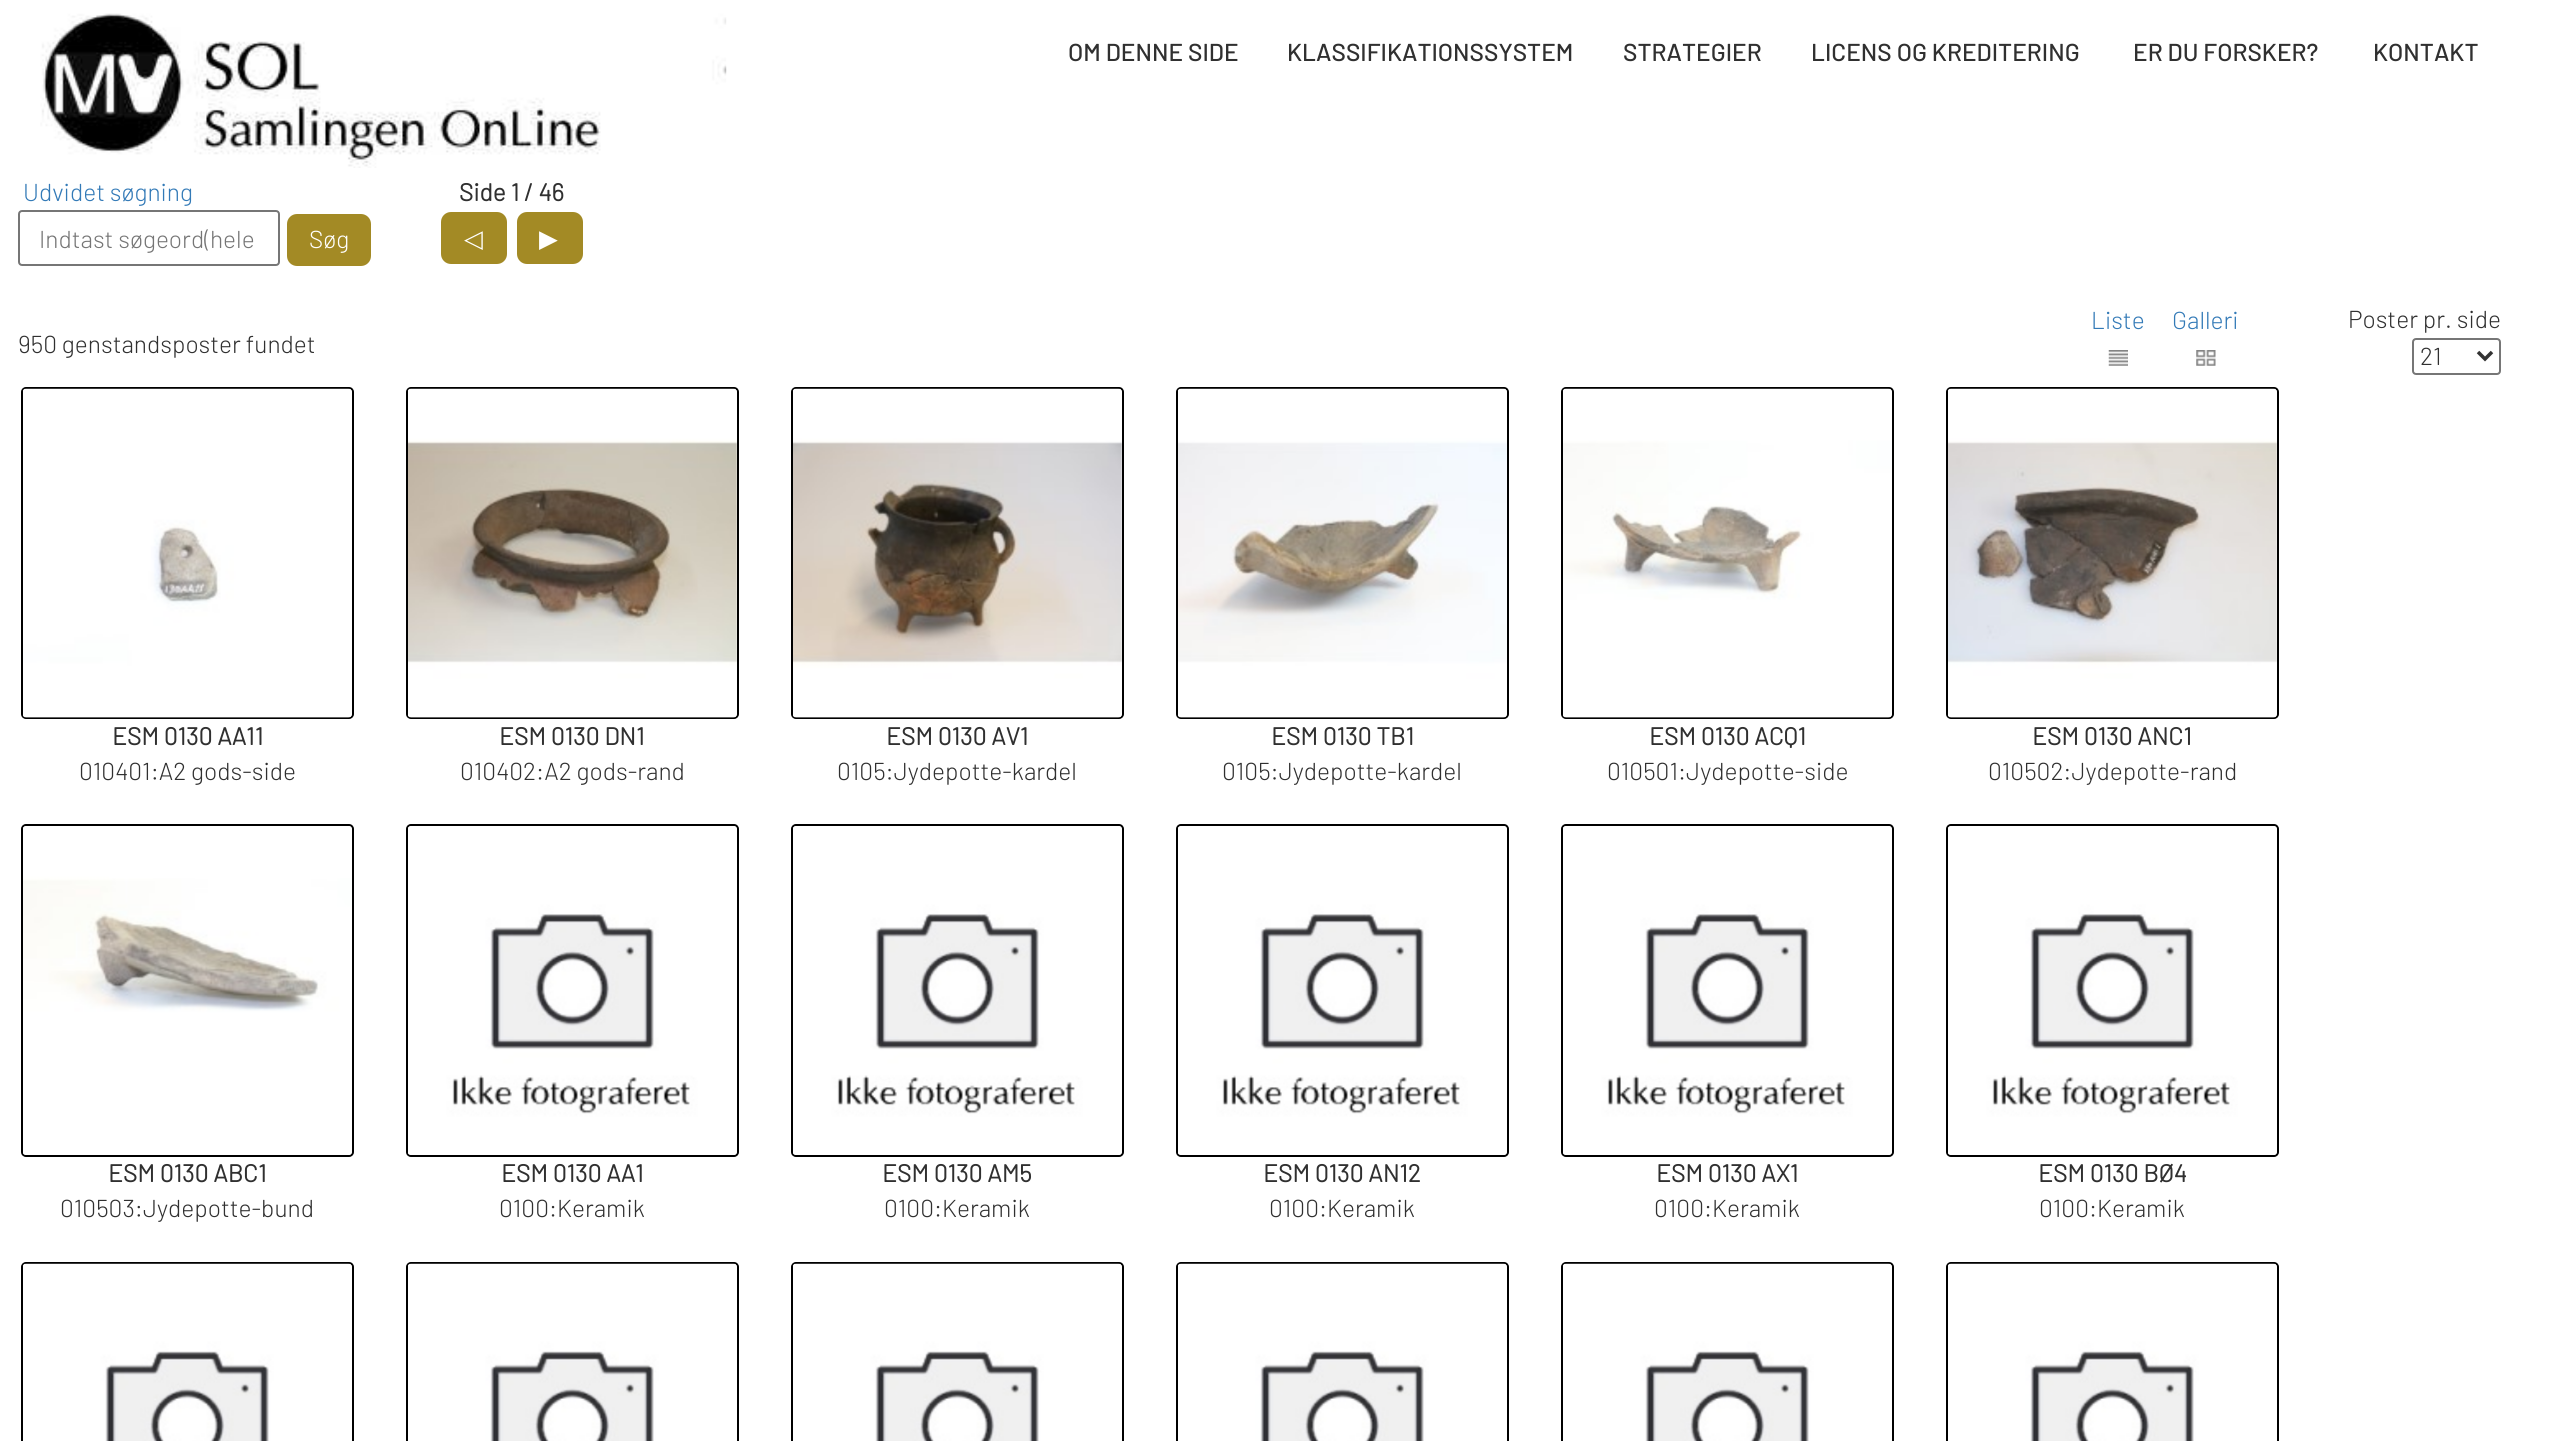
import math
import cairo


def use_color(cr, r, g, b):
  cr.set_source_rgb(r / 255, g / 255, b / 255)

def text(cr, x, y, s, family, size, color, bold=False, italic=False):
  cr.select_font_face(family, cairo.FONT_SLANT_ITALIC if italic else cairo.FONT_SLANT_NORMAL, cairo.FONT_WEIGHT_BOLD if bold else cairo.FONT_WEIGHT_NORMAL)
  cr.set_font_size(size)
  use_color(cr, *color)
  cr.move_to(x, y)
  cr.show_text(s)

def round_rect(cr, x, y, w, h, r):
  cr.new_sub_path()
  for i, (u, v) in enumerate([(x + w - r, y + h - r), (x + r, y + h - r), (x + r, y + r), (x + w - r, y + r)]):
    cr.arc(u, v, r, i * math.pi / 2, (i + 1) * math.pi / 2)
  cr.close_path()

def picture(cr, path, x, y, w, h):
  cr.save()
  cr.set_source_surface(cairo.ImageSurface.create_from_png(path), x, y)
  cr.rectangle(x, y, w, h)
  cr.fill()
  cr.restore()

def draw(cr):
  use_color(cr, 255, 255, 255)
  cr.paint()
  picture(cr, "img_01.png", 40, 13, 687, 155)
  round_rect(cr, 19, 211, 260, 54, 3)
  use_color(cr, 118, 118, 118)
  cr.stroke()
  use_color(cr, 163, 138, 37)
  round_rect(cr, 286, 213, 86, 54, 11)
  cr.fill_preserve()
  use_color(cr, 255, 255, 255)
  cr.stroke()
  use_color(cr, 163, 138, 37)
  round_rect(cr, 440, 211, 68, 54, 11)
  cr.fill_preserve()
  use_color(cr, 255, 255, 255)
  cr.stroke()
  use_color(cr, 163, 138, 37)
  round_rect(cr, 516, 211, 68, 54, 11)
  cr.fill_preserve()
  use_color(cr, 255, 255, 255)
  cr.stroke()
  picture(cr, "img_02.png", 2108, 350, 20, 16)
  picture(cr, "img_03.png", 2196, 350, 20, 16)
  round_rect(cr, 2413, 339, 87, 35, 3)
  use_color(cr, 118, 118, 118)
  cr.stroke()
  cr.new_path()
  cr.move_to(2478, 352)
  cr.line_to(2485, 359)
  cr.line_to(2492, 352)
  use_color(cr, 51, 51, 51)
  cr.set_line_width(3.5)
  cr.stroke()
  round_rect(cr, 22, 388, 331, 330, 4)
  use_color(cr, 0, 0, 0)
  cr.set_line_width(2)
  cr.stroke()
  picture(cr, "img_04.png", 23, 388, 329, 330)
  round_rect(cr, 407, 388, 331, 330, 4)
  cr.stroke()
  picture(cr, "img_05.png", 408, 388, 329, 330)
  round_rect(cr, 792, 388, 331, 330, 4)
  cr.stroke()
  picture(cr, "img_06.png", 793, 388, 329, 330)
  round_rect(cr, 1177, 388, 331, 330, 4)
  cr.stroke()
  picture(cr, "img_07.png", 1178, 388, 329, 330)
  round_rect(cr, 1562, 388, 331, 330, 4)
  cr.stroke()
  picture(cr, "img_08.png", 1563, 388, 329, 330)
  round_rect(cr, 1947, 388, 331, 330, 4)
  cr.stroke()
  picture(cr, "img_09.png", 1948, 388, 329, 330)
  round_rect(cr, 22, 825, 331, 331, 4)
  cr.stroke()
  picture(cr, "img_10.png", 23, 826, 329, 329)
  round_rect(cr, 407, 825, 331, 331, 4)
  cr.stroke()
  picture(cr, "img_11.png", 408, 826, 329, 329)
  round_rect(cr, 792, 825, 331, 331, 4)
  cr.stroke()
  picture(cr, "img_11.png", 793, 826, 329, 329)
  round_rect(cr, 1177, 825, 331, 331, 4)
  cr.stroke()
  picture(cr, "img_11.png", 1178, 826, 329, 329)
  round_rect(cr, 1562, 825, 331, 331, 4)
  cr.stroke()
  picture(cr, "img_11.png", 1563, 826, 329, 329)
  round_rect(cr, 1947, 825, 331, 331, 4)
  cr.stroke()
  picture(cr, "img_11.png", 1948, 826, 329, 329)
  round_rect(cr, 22, 1263, 331, 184, 4)
  cr.stroke()
  picture(cr, "img_12.png", 23, 1263, 329, 178)
  round_rect(cr, 407, 1263, 331, 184, 4)
  cr.stroke()
  picture(cr, "img_12.png", 408, 1263, 329, 178)
  round_rect(cr, 792, 1263, 331, 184, 4)
  cr.stroke()
  picture(cr, "img_12.png", 793, 1263, 329, 178)
  round_rect(cr, 1177, 1263, 331, 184, 4)
  cr.stroke()
  picture(cr, "img_12.png", 1178, 1263, 329, 178)
  round_rect(cr, 1562, 1263, 331, 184, 4)
  cr.stroke()
  picture(cr, "img_12.png", 1563, 1263, 329, 178)
  round_rect(cr, 1947, 1263, 331, 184, 4)
  cr.stroke()
  picture(cr, "img_12.png", 1948, 1263, 329, 178)
  text(cr, 1068, 61, "OM DENNE SIDE", "Barlow Medium", 24.5, (48, 48, 48))
  text(cr, 1287, 61, "KLASSIFIKATIONSSYSTEM", "Barlow Medium", 24.5, (48, 48, 48))
  text(cr, 1623, 61, "STRATEGIER", "Barlow Medium", 24.5, (48, 48, 48))
  text(cr, 1811, 61, "LICENS OG KREDITERING", "Barlow Medium", 24.5, (48, 48, 48))
  text(cr, 2133, 61, "ER DU FORSKER?", "Barlow Medium", 24.5, (48, 48, 48))
  text(cr, 2373, 61, "KONTAKT", "Barlow Medium", 24.5, (48, 48, 48))
  text(cr, 23, 201, "Udvidet søgning", "Barlow Light", 24.5, (51, 122, 183))
  text(cr, 459, 201, "Side 1 / 46", "Barlow", 24.5, (48, 48, 48), bold=True)
  text(cr, 39, 248, "Indtast søgeord(hele", "Barlow Light", 24.5, (117, 117, 117))
  text(cr, 309, 248, "Søg", "Barlow Light", 24.5, (255, 255, 255))
  text(cr, 464, 247, "◁", "DejaVu Sans", 24.5, (255, 255, 255))
  text(cr, 539, 247, "▶", "DejaVu Sans", 24.5, (255, 255, 255))
  text(cr, 2091, 329, "Liste", "Barlow Light", 24.5, (51, 122, 183))
  text(cr, 2172, 329, "Galleri", "Barlow Light", 24.5, (51, 122, 183))
  text(cr, 2348, 328, "Poster pr. side", "Barlow Light", 24.5, (48, 48, 48))
  text(cr, 2420, 365, "21", "Barlow Light", 24.5, (48, 48, 48))
  text(cr, 18, 353, "950 genstandsposter fundet", "Barlow Light", 24.5, (48, 48, 48))
  text(cr, 112, 745, "ESM 0130 AA11", "Barlow", 24.5, (48, 48, 48), bold=True)
  text(cr, 79, 780, "010401:A2 gods-side", "Barlow Light", 24.5, (48, 48, 48))
  text(cr, 499, 745, "ESM 0130 DN1", "Barlow", 24.5, (48, 48, 48), bold=True)
  text(cr, 460, 780, "010402:A2 gods-rand", "Barlow Light", 24.5, (48, 48, 48))
  text(cr, 886, 745, "ESM 0130 AV1", "Barlow", 24.5, (48, 48, 48), bold=True)
  text(cr, 837, 780, "0105:Jydepotte-kardel", "Barlow Light", 24.5, (48, 48, 48))
  text(cr, 1271, 745, "ESM 0130 TB1", "Barlow", 24.5, (48, 48, 48), bold=True)
  text(cr, 1222, 780, "0105:Jydepotte-kardel", "Barlow Light", 24.5, (48, 48, 48))
  text(cr, 1649, 745, "ESM 0130 ACQ1", "Barlow", 24.5, (48, 48, 48), bold=True)
  text(cr, 1607, 780, "010501:Jydepotte-side", "Barlow Light", 24.5, (48, 48, 48))
  text(cr, 2032, 745, "ESM 0130 ANC1", "Barlow", 24.5, (48, 48, 48), bold=True)
  text(cr, 1988, 780, "010502:Jydepotte-rand", "Barlow Light", 24.5, (48, 48, 48))
  text(cr, 108, 1182, "ESM 0130 ABC1", "Barlow", 24.5, (48, 48, 48), bold=True)
  text(cr, 60, 1217, "010503:Jydepotte-bund", "Barlow Light", 24.5, (48, 48, 48))
  text(cr, 501, 1182, "ESM 0130 AA1", "Barlow", 24.5, (48, 48, 48), bold=True)
  text(cr, 499, 1217, "0100:Keramik", "Barlow Light", 24.5, (48, 48, 48))
  text(cr, 882, 1182, "ESM 0130 AM5", "Barlow", 24.5, (48, 48, 48), bold=True)
  text(cr, 884, 1217, "0100:Keramik", "Barlow Light", 24.5, (48, 48, 48))
  text(cr, 1263, 1182, "ESM 0130 AN12", "Barlow", 24.5, (48, 48, 48), bold=True)
  text(cr, 1269, 1217, "0100:Keramik", "Barlow Light", 24.5, (48, 48, 48))
  text(cr, 1656, 1182, "ESM 0130 AX1", "Barlow", 24.5, (48, 48, 48), bold=True)
  text(cr, 1654, 1217, "0100:Keramik", "Barlow Light", 24.5, (48, 48, 48))
  text(cr, 2038, 1182, "ESM 0130 BØ4", "Barlow", 24.5, (48, 48, 48), bold=True)
  text(cr, 2039, 1217, "0100:Keramik", "Barlow Light", 24.5, (48, 48, 48))


surface = cairo.ImageSurface(cairo.FORMAT_RGB24, 2555, 1441)
cr = cairo.Context(surface)
options = cairo.FontOptions()
options.set_hint_metrics(cairo.HINT_METRICS_OFF)
options.set_hint_style(cairo.HINT_STYLE_NONE)
cr.set_font_options(options)
cr.set_miter_limit(4)
draw(cr)
surface.write_to_png("out.png")
